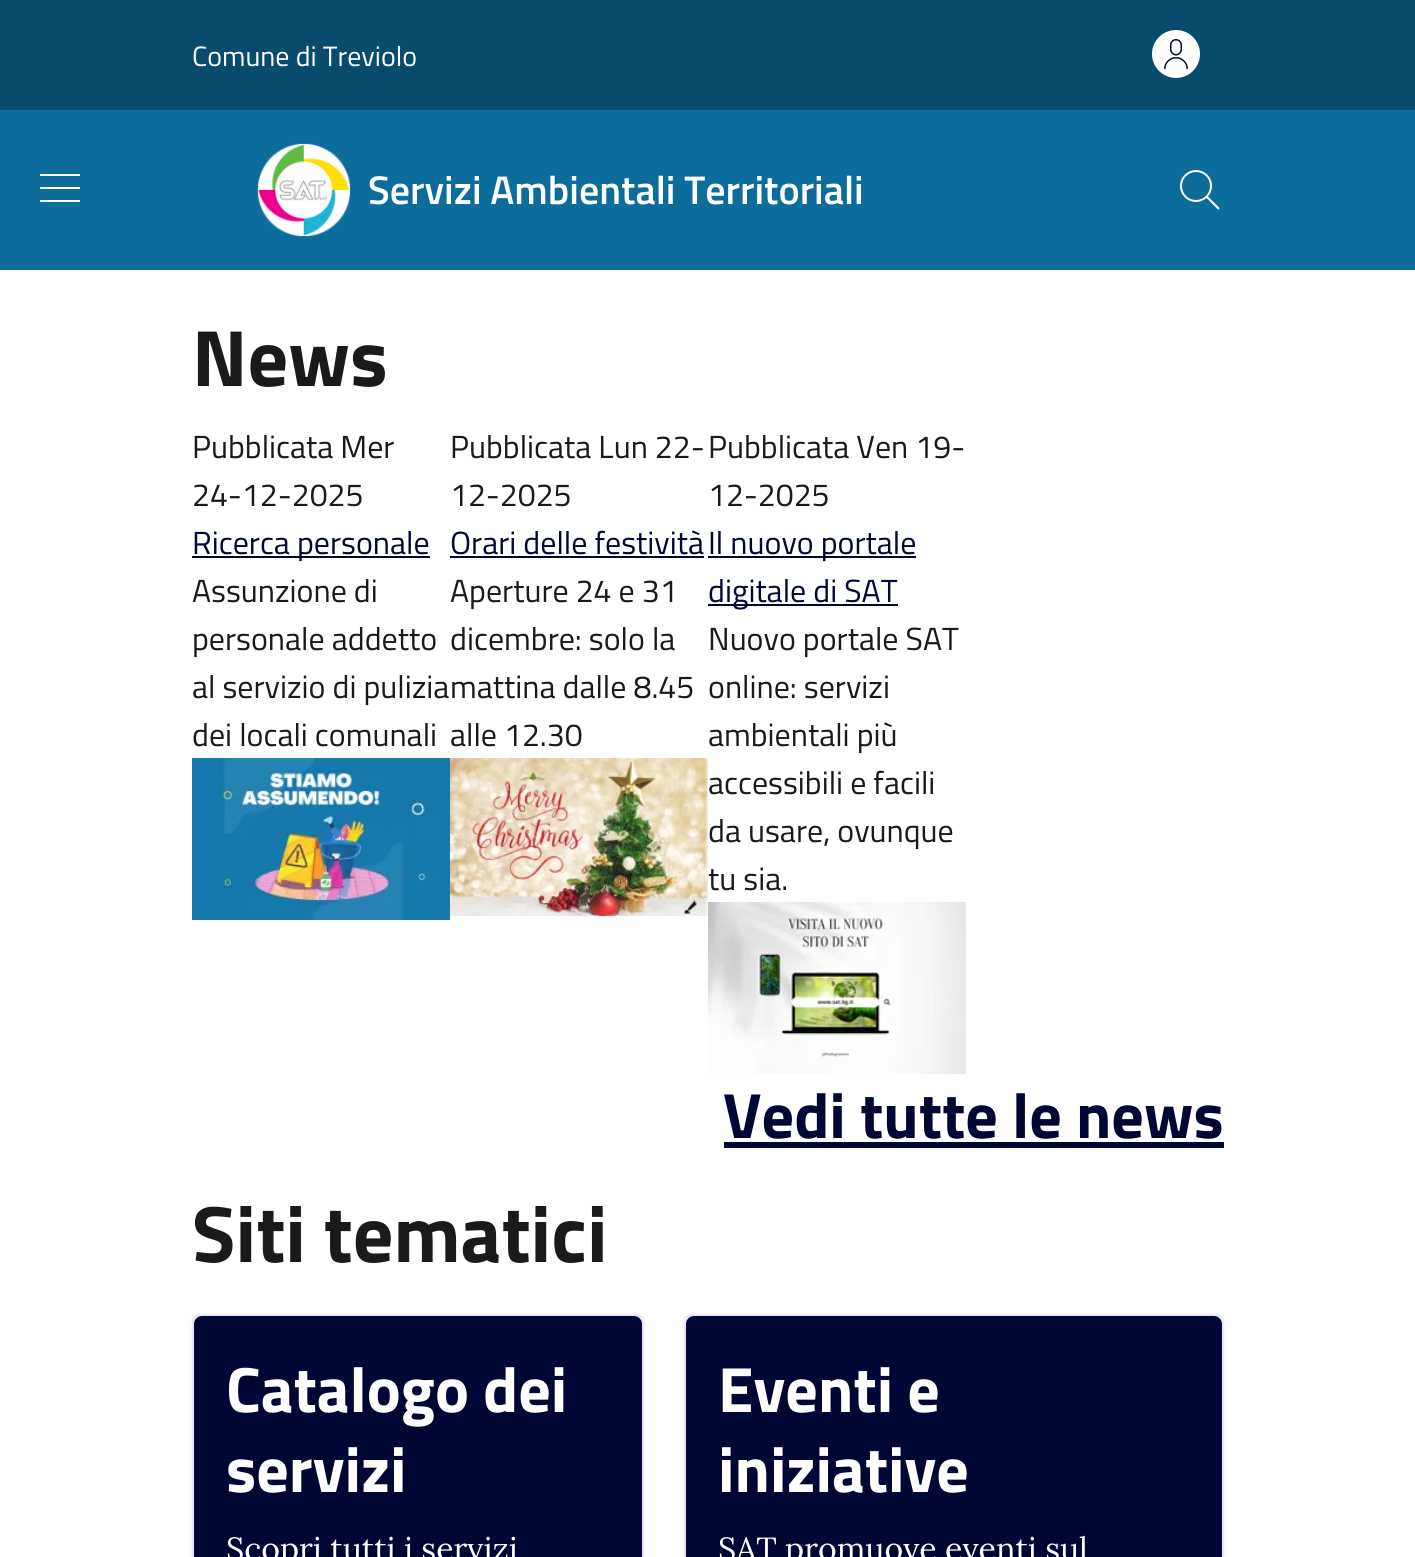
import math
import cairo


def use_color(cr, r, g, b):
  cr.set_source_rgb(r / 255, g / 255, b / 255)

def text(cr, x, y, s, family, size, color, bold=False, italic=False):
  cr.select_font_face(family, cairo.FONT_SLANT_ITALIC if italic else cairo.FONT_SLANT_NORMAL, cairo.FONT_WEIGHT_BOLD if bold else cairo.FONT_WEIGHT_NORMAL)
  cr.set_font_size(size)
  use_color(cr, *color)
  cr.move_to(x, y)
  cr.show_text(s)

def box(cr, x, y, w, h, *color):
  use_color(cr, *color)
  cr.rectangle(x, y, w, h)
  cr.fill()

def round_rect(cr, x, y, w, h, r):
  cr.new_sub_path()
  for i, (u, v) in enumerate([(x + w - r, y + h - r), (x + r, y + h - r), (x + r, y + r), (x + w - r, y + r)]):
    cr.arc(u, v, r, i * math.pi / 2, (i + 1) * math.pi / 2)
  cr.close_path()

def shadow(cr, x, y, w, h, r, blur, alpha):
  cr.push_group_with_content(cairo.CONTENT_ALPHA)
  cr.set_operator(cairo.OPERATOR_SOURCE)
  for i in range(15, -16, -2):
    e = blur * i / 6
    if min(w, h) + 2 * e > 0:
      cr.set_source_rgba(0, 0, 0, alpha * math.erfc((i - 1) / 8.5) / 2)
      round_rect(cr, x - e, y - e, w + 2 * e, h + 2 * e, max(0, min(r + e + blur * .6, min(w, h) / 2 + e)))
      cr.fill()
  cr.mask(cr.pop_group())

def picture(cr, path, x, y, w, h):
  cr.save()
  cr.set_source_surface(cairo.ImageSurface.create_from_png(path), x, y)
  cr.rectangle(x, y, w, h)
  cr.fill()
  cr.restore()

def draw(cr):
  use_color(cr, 255, 255, 255)
  cr.paint()
  box(cr, 0, 0, 1415, 110, 8, 75, 109)
  use_color(cr, 255, 255, 255)
  cr.arc(1176, 54, 24, 0, 2 * math.pi)
  cr.fill()
  picture(cr, "img_01.png", 1164, 39, 24, 30)
  box(cr, 0, 110, 1415, 160, 12, 108, 156)
  use_color(cr, 255, 255, 255)
  cr.new_path()
  cr.move_to(80, 174)
  cr.line_to(80, 176)
  cr.line_to(40, 176)
  cr.line_to(40, 174)
  cr.close_path()
  cr.move_to(40, 189)
  cr.line_to(80, 189)
  cr.line_to(80, 187)
  cr.line_to(40, 187)
  cr.close_path()
  cr.move_to(40, 202)
  cr.line_to(80, 202)
  cr.line_to(80, 200)
  cr.line_to(40, 200)
  cr.close_path()
  cr.fill()
  picture(cr, "img_02.png", 257, 143, 94, 94)
  picture(cr, "img_03.png", 1180, 170, 40, 40)
  box(cr, 192, 556, 238, 2, 0, 7, 53)
  picture(cr, "img_04.png", 192, 758, 258, 162)
  box(cr, 450, 556, 254, 2, 0, 7, 53)
  picture(cr, "img_05.png", 450, 758, 258, 158)
  box(cr, 708, 556, 208, 2, 0, 7, 53)
  box(cr, 708, 604, 190, 2, 0, 7, 53)
  picture(cr, "img_06.png", 708, 902, 258, 172)
  box(cr, 724, 1142, 500, 6, 0, 7, 53)
  use_color(cr, 0, 0, 0)
  shadow(cr, 192, 1318, 452, 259, 8, 4, 0.07)
  round_rect(cr, 193, 1315, 450, 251, 7)
  use_color(cr, 233, 230, 242)
  cr.stroke()
  use_color(cr, 0, 7, 53)
  round_rect(cr, 194, 1316, 448, 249, 8)
  cr.fill()
  use_color(cr, 0, 0, 0)
  shadow(cr, 684, 1318, 540, 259, 8, 4, 0.07)
  round_rect(cr, 685, 1315, 538, 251, 7)
  use_color(cr, 233, 230, 242)
  cr.stroke()
  use_color(cr, 0, 7, 53)
  round_rect(cr, 686, 1316, 536, 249, 8)
  cr.fill()
  text(cr, 192, 66, "Comune di Treviolo", "Titillium Web", 28, (255, 255, 255))
  text(cr, 368, 204, "Servizi Ambientali Territoriali", "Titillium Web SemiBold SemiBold", 40, (255, 255, 255))
  text(cr, 192, 386, "News", "Titillium Web", 80, (26, 26, 26), bold=True)
  text(cr, 192, 458, "Pubblicata Mer", "Titillium Web", 32, (26, 26, 26))
  text(cr, 192, 506, "24-12-2025", "Titillium Web", 32, (26, 26, 26))
  text(cr, 192, 554, "Ricerca personale", "Titillium Web", 32, (0, 7, 53))
  text(cr, 192, 602, "Assunzione di", "Titillium Web", 32, (26, 26, 26))
  text(cr, 192, 650, "personale addetto", "Titillium Web", 32, (26, 26, 26))
  text(cr, 192, 698, "al servizio di pulizia", "Titillium Web", 32, (26, 26, 26))
  text(cr, 192, 746, "dei locali comunali", "Titillium Web", 32, (26, 26, 26))
  text(cr, 450, 458, "Pubblicata Lun 22-", "Titillium Web", 32, (26, 26, 26))
  text(cr, 450, 506, "12-2025", "Titillium Web", 32, (26, 26, 26))
  text(cr, 450, 554, "Orari delle festività", "Titillium Web", 32, (0, 7, 53))
  text(cr, 450, 602, "Aperture 24 e 31", "Titillium Web", 32, (26, 26, 26))
  text(cr, 450, 650, "dicembre: solo la", "Titillium Web", 32, (26, 26, 26))
  text(cr, 450, 698, "mattina dalle 8.45", "Titillium Web", 32, (26, 26, 26))
  text(cr, 450, 746, "alle 12.30", "Titillium Web", 32, (26, 26, 26))
  text(cr, 708, 458, "Pubblicata Ven 19-", "Titillium Web", 32, (26, 26, 26))
  text(cr, 708, 506, "12-2025", "Titillium Web", 32, (26, 26, 26))
  text(cr, 708, 554, "Il nuovo portale", "Titillium Web", 32, (0, 7, 53))
  text(cr, 708, 602, "digitale di SAT", "Titillium Web", 32, (0, 7, 53))
  text(cr, 708, 650, "Nuovo portale SAT", "Titillium Web", 32, (26, 26, 26))
  text(cr, 708, 698, "online: servizi", "Titillium Web", 32, (26, 26, 26))
  text(cr, 708, 746, "ambientali più", "Titillium Web", 32, (26, 26, 26))
  text(cr, 708, 794, "accessibili e facili", "Titillium Web", 32, (26, 26, 26))
  text(cr, 708, 842, "da usare, ovunque", "Titillium Web", 32, (26, 26, 26))
  text(cr, 708, 890, "tu sia.", "Titillium Web", 32, (26, 26, 26))
  text(cr, 723, 1138, "Vedi tutte le news", "Titillium Web", 64, (0, 7, 53), bold=True)
  text(cr, 192, 1262, "Siti tematici", "Titillium Web", 80, (26, 26, 26), bold=True)
  text(cr, 226, 1412, "Catalogo dei", "Titillium Web", 64, (255, 255, 255), bold=True)
  text(cr, 226, 1492, "servizi", "Titillium Web", 64, (255, 255, 255), bold=True)
  text(cr, 226, 1560, "Scopri tutti i servizi", "Lora", 32, (255, 255, 255))
  text(cr, 718, 1412, "Eventi e", "Titillium Web", 64, (255, 255, 255), bold=True)
  text(cr, 718, 1492, "iniziative", "Titillium Web", 64, (255, 255, 255), bold=True)
  text(cr, 718, 1560, "SAT promuove eventi sul", "Lora", 32, (255, 255, 255))


surface = cairo.ImageSurface(cairo.FORMAT_RGB24, 1415, 1557)
cr = cairo.Context(surface)
options = cairo.FontOptions()
options.set_hint_metrics(cairo.HINT_METRICS_OFF)
options.set_hint_style(cairo.HINT_STYLE_NONE)
cr.set_font_options(options)
cr.set_miter_limit(4)
draw(cr)
surface.write_to_png("out.png")
